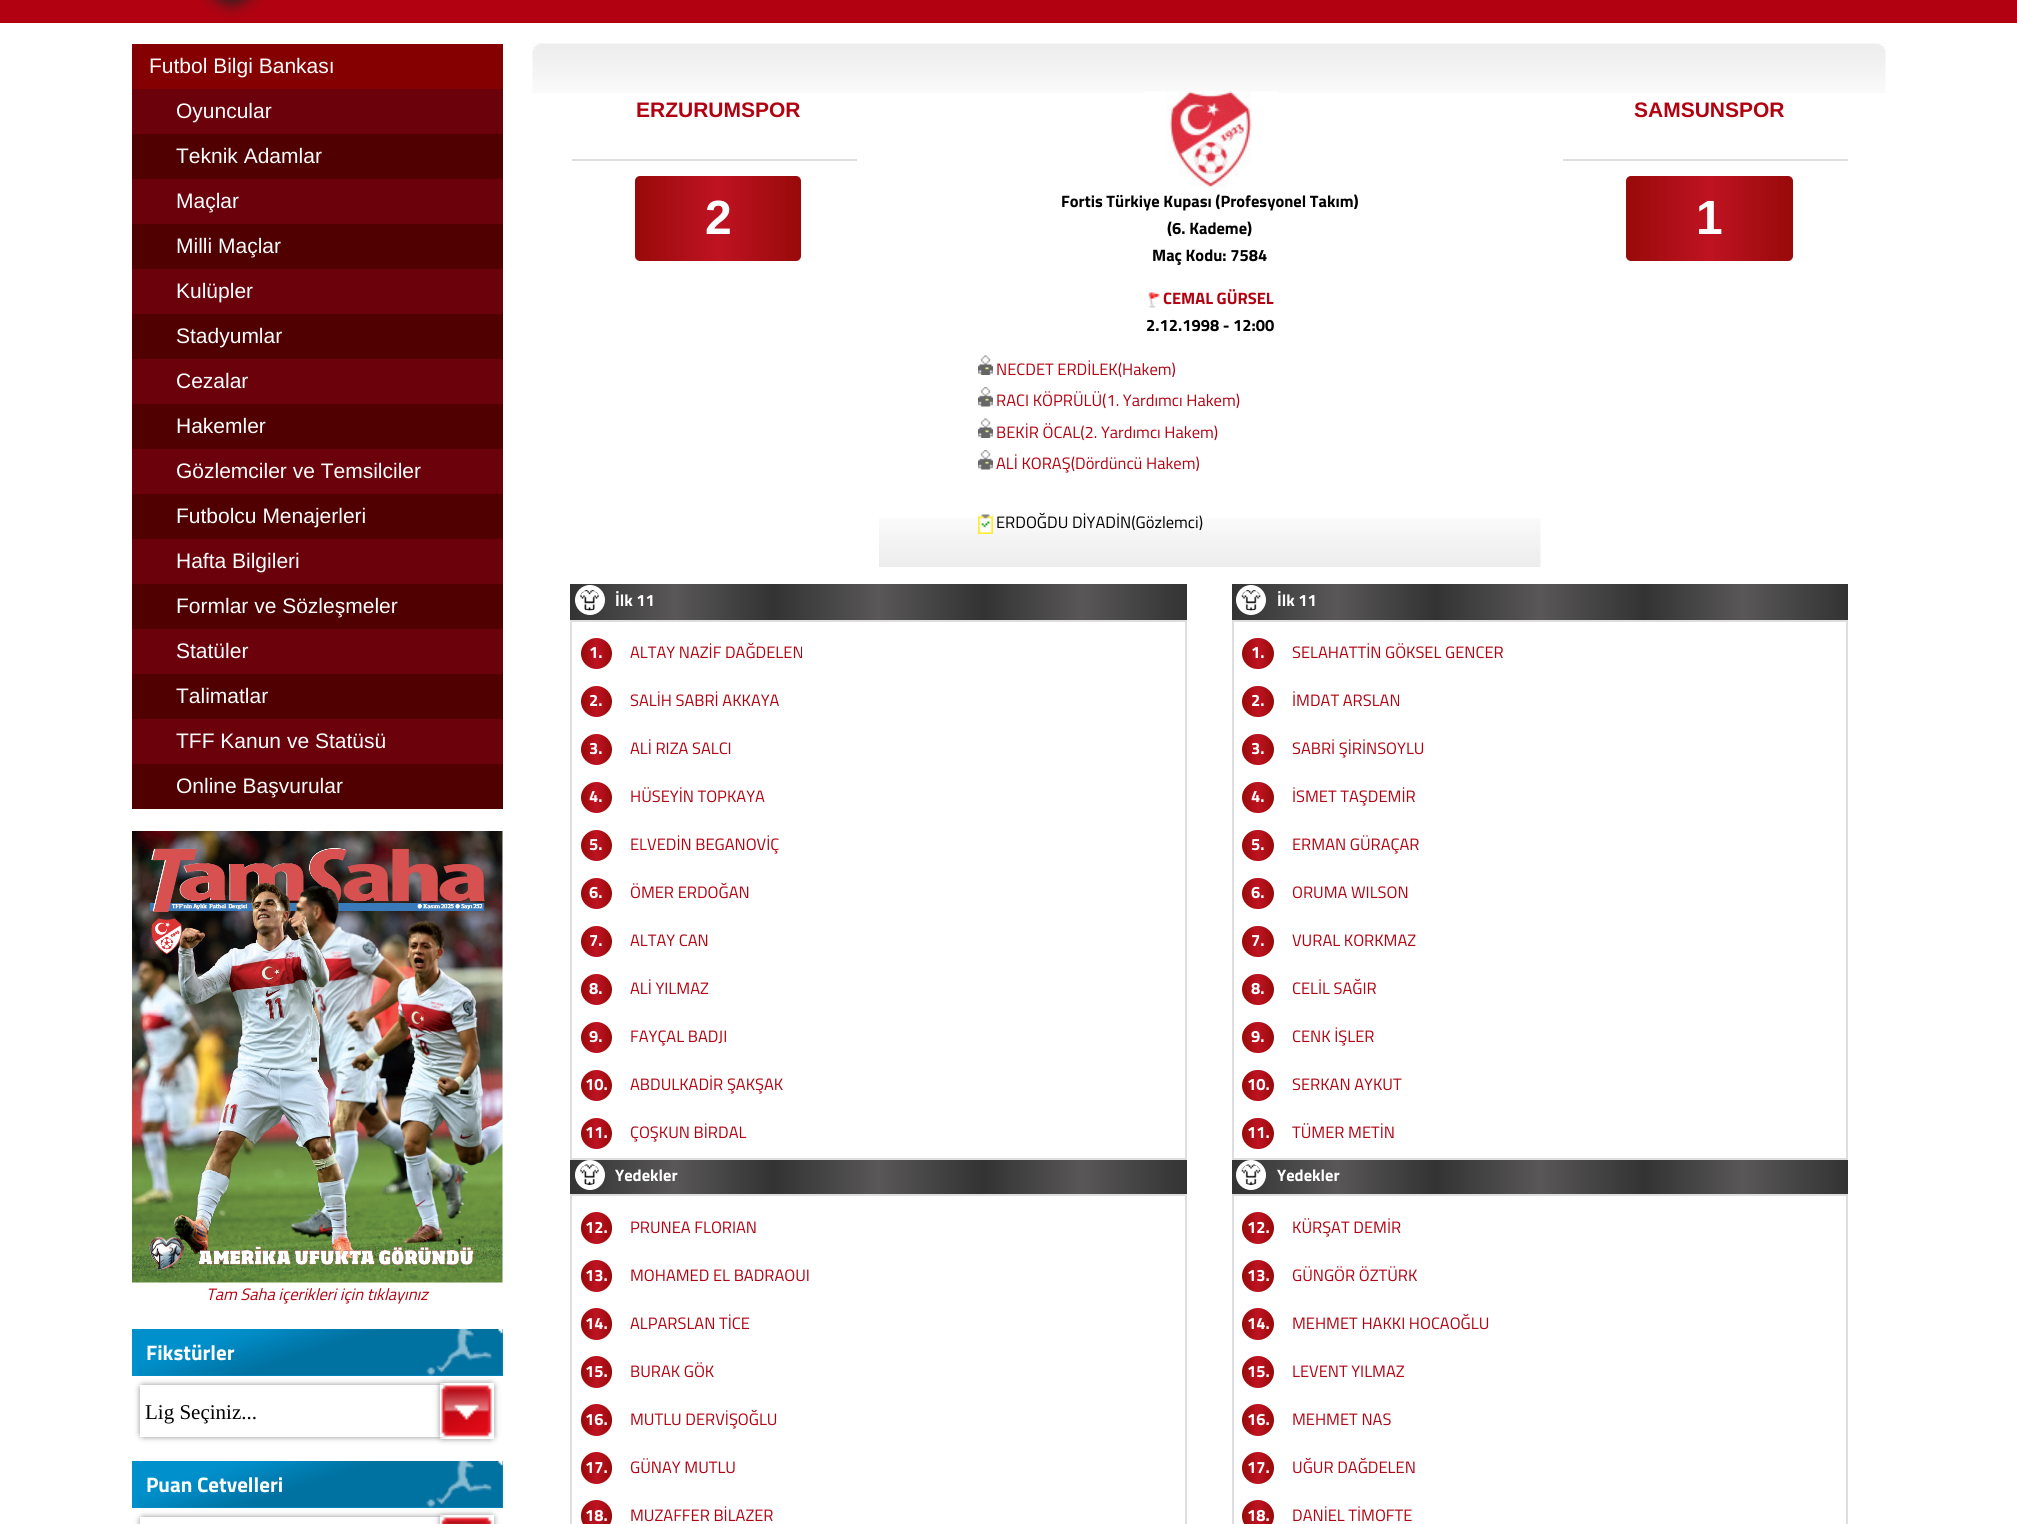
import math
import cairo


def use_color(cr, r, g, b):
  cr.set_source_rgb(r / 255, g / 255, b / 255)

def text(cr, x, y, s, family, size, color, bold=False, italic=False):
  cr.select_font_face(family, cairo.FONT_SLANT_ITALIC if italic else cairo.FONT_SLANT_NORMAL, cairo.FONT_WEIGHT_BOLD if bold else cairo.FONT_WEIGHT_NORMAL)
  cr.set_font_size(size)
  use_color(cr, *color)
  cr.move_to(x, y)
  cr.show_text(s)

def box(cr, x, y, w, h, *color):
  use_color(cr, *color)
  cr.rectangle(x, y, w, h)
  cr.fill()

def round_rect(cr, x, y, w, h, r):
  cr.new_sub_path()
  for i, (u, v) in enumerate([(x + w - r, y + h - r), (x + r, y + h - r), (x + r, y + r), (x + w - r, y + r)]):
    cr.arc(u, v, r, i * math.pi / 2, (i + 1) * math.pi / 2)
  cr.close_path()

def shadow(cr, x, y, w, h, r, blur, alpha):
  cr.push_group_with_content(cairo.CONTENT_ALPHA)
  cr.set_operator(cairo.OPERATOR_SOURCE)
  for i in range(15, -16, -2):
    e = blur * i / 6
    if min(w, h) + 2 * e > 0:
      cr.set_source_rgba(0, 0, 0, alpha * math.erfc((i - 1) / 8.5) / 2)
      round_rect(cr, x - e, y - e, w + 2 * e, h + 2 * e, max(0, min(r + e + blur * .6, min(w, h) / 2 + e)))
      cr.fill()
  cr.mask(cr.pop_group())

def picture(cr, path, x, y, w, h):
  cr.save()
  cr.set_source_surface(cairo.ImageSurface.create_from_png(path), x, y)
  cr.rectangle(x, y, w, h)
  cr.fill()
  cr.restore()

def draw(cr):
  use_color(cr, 255, 255, 255)
  cr.paint()
  box(cr, 0, 0, 2017, 23, 178, 2, 17)
  picture(cr, "img_01.png", 199, 0, 66, 18)
  box(cr, 132, 44, 371, 45, 133, 0, 0)
  box(cr, 132, 89, 371, 45, 107, 1, 10)
  box(cr, 132, 134, 371, 45, 80, 0, 0)
  box(cr, 132, 179, 371, 45, 107, 1, 10)
  box(cr, 132, 224, 371, 45, 80, 0, 0)
  box(cr, 132, 269, 371, 45, 107, 1, 10)
  box(cr, 132, 314, 371, 45, 80, 0, 0)
  box(cr, 132, 359, 371, 45, 107, 1, 10)
  box(cr, 132, 404, 371, 45, 80, 0, 0)
  box(cr, 132, 449, 371, 45, 107, 1, 10)
  box(cr, 132, 494, 371, 45, 80, 0, 0)
  box(cr, 132, 539, 371, 45, 107, 1, 10)
  box(cr, 132, 584, 371, 45, 80, 0, 0)
  box(cr, 132, 629, 371, 45, 107, 1, 10)
  box(cr, 132, 674, 371, 45, 80, 0, 0)
  box(cr, 132, 719, 371, 45, 107, 1, 10)
  box(cr, 132, 764, 371, 45, 80, 0, 0)
  picture(cr, "img_02.png", 132, 831, 371, 452)
  box(cr, 132, 1329, 371, 47, 0, 144, 204)
  picture(cr, "img_03.png", 138, 1329, 365, 47)
  use_color(cr, 0, 0, 0)
  shadow(cr, 143, 1388, 297, 46, 0, 4, 1)
  box(cr, 140, 1385, 303, 52, 255, 255, 255)
  cr.save()
  cr.set_fill_rule(cairo.FILL_RULE_EVEN_ODD)
  cr.new_path()
  cr.move_to(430, 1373)
  cr.line_to(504, 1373)
  cr.line_to(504, 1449)
  cr.line_to(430, 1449)
  cr.close_path()
  cr.move_to(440, 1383)
  cr.line_to(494, 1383)
  cr.line_to(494, 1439)
  cr.line_to(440, 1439)
  cr.close_path()
  cr.clip()
  use_color(cr, 0, 0, 0)
  shadow(cr, 443, 1386, 48, 50, 0, 4, 1)
  cr.restore()
  picture(cr, "img_04.png", 441, 1385, 51, 52)
  box(cr, 132, 1461, 371, 47, 0, 144, 204)
  picture(cr, "img_03.png", 138, 1461, 365, 47)
  use_color(cr, 0, 0, 0)
  shadow(cr, 143, 1520, 297, 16, 0, 4, 1)
  box(cr, 140, 1517, 303, 7, 255, 255, 255)
  cr.save()
  cr.set_fill_rule(cairo.FILL_RULE_EVEN_ODD)
  cr.new_path()
  cr.move_to(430, 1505)
  cr.line_to(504, 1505)
  cr.line_to(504, 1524)
  cr.line_to(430, 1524)
  cr.close_path()
  cr.move_to(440, 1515)
  cr.line_to(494, 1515)
  cr.line_to(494, 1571)
  cr.line_to(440, 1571)
  cr.close_path()
  cr.clip()
  use_color(cr, 0, 0, 0)
  shadow(cr, 443, 1518, 48, 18, 0, 4, 1)
  cr.restore()
  picture(cr, "img_05.png", 441, 1517, 51, 7)
  picture(cr, "img_06.png", 532, 43, 1354, 50)
  picture(cr, "img_07.png", 532, 43, 7, 7)
  picture(cr, "img_08.png", 1879, 43, 7, 7)
  box(cr, 572, 159, 285, 2, 222, 222, 222)
  gradient = cairo.LinearGradient(635, 218, 801, 218)
  gradient.add_color_stop_rgba(0, 0.596, 0.039, 0.039, 1)
  gradient.add_color_stop_rgba(0.5, 0.749, 0.075, 0.133, 1)
  gradient.add_color_stop_rgba(1, 0.596, 0.039, 0.039, 1)
  cr.set_source(gradient)
  round_rect(cr, 635, 176, 166, 85, 5)
  cr.fill()
  box(cr, 1563, 159, 285, 2, 222, 222, 222)
  gradient = cairo.LinearGradient(1626, 218, 1793, 218)
  gradient.add_color_stop_rgba(0, 0.596, 0.039, 0.039, 1)
  gradient.add_color_stop_rgba(0.5, 0.749, 0.075, 0.133, 1)
  gradient.add_color_stop_rgba(1, 0.596, 0.039, 0.039, 1)
  cr.set_source(gradient)
  round_rect(cr, 1626, 176, 167, 85, 5)
  cr.fill()
  picture(cr, "img_09.png", 879, 518, 662, 49)
  picture(cr, "img_10.png", 1143, 91, 135, 97)
  picture(cr, "img_11.png", 1148, 292, 12, 16)
  picture(cr, "img_12.png", 978, 355, 15, 20)
  picture(cr, "img_13.png", 978, 387, 15, 20)
  picture(cr, "img_12.png", 978, 418, 15, 20)
  picture(cr, "img_13.png", 978, 450, 15, 20)
  picture(cr, "img_14.png", 978, 514, 15, 20)
  gradient = cairo.LinearGradient(570, 602, 1187, 602)
  gradient.add_color_stop_rgba(0, 0.2, 0.2, 0.2, 1)
  gradient.add_color_stop_rgba(0.17, 0.349, 0.341, 0.341, 1)
  gradient.add_color_stop_rgba(0.33, 0.2, 0.2, 0.2, 1)
  gradient.add_color_stop_rgba(0.5, 0.349, 0.341, 0.341, 1)
  gradient.add_color_stop_rgba(0.67, 0.2, 0.2, 0.2, 1)
  gradient.add_color_stop_rgba(0.83, 0.349, 0.341, 0.341, 1)
  gradient.add_color_stop_rgba(1, 0.2, 0.2, 0.2, 1)
  cr.set_source(gradient)
  cr.rectangle(570, 584, 617, 36)
  cr.fill()
  use_color(cr, 255, 255, 255)
  cr.arc(590, 600, 15, 0, 2 * math.pi)
  cr.fill()
  picture(cr, "img_15.png", 579, 589, 21, 22)
  cr.rectangle(571, 621, 615, 538)
  use_color(cr, 222, 222, 222)
  cr.stroke()
  gradient = cairo.LinearGradient(581, 653, 612, 653)
  gradient.add_color_stop_rgba(0, 0.596, 0.039, 0.039, 1)
  gradient.add_color_stop_rgba(0.5, 0.749, 0.075, 0.133, 1)
  gradient.add_color_stop_rgba(1, 0.596, 0.039, 0.039, 1)
  cr.set_source(gradient)
  cr.arc(596.5, 653.5, 15.5, 0, 2 * math.pi)
  cr.fill()
  gradient = cairo.LinearGradient(581, 701, 612, 701)
  gradient.add_color_stop_rgba(0, 0.596, 0.039, 0.039, 1)
  gradient.add_color_stop_rgba(0.5, 0.749, 0.075, 0.133, 1)
  gradient.add_color_stop_rgba(1, 0.596, 0.039, 0.039, 1)
  cr.set_source(gradient)
  cr.arc(596.5, 701.5, 15.5, 0, 2 * math.pi)
  cr.fill()
  gradient = cairo.LinearGradient(581, 749, 612, 749)
  gradient.add_color_stop_rgba(0, 0.596, 0.039, 0.039, 1)
  gradient.add_color_stop_rgba(0.5, 0.749, 0.075, 0.133, 1)
  gradient.add_color_stop_rgba(1, 0.596, 0.039, 0.039, 1)
  cr.set_source(gradient)
  cr.arc(596.5, 749.5, 15.5, 0, 2 * math.pi)
  cr.fill()
  gradient = cairo.LinearGradient(581, 797, 612, 797)
  gradient.add_color_stop_rgba(0, 0.596, 0.039, 0.039, 1)
  gradient.add_color_stop_rgba(0.5, 0.749, 0.075, 0.133, 1)
  gradient.add_color_stop_rgba(1, 0.596, 0.039, 0.039, 1)
  cr.set_source(gradient)
  cr.arc(596.5, 797.5, 15.5, 0, 2 * math.pi)
  cr.fill()
  gradient = cairo.LinearGradient(581, 845, 612, 845)
  gradient.add_color_stop_rgba(0, 0.596, 0.039, 0.039, 1)
  gradient.add_color_stop_rgba(0.5, 0.749, 0.075, 0.133, 1)
  gradient.add_color_stop_rgba(1, 0.596, 0.039, 0.039, 1)
  cr.set_source(gradient)
  cr.arc(596.5, 845.5, 15.5, 0, 2 * math.pi)
  cr.fill()
  gradient = cairo.LinearGradient(581, 893, 612, 893)
  gradient.add_color_stop_rgba(0, 0.596, 0.039, 0.039, 1)
  gradient.add_color_stop_rgba(0.5, 0.749, 0.075, 0.133, 1)
  gradient.add_color_stop_rgba(1, 0.596, 0.039, 0.039, 1)
  cr.set_source(gradient)
  cr.arc(596.5, 893.5, 15.5, 0, 2 * math.pi)
  cr.fill()
  gradient = cairo.LinearGradient(581, 941, 612, 941)
  gradient.add_color_stop_rgba(0, 0.596, 0.039, 0.039, 1)
  gradient.add_color_stop_rgba(0.5, 0.749, 0.075, 0.133, 1)
  gradient.add_color_stop_rgba(1, 0.596, 0.039, 0.039, 1)
  cr.set_source(gradient)
  cr.arc(596.5, 941.5, 15.5, 0, 2 * math.pi)
  cr.fill()
  gradient = cairo.LinearGradient(581, 989, 612, 989)
  gradient.add_color_stop_rgba(0, 0.596, 0.039, 0.039, 1)
  gradient.add_color_stop_rgba(0.5, 0.749, 0.075, 0.133, 1)
  gradient.add_color_stop_rgba(1, 0.596, 0.039, 0.039, 1)
  cr.set_source(gradient)
  cr.arc(596.5, 989.5, 15.5, 0, 2 * math.pi)
  cr.fill()
  gradient = cairo.LinearGradient(581, 1037, 612, 1037)
  gradient.add_color_stop_rgba(0, 0.596, 0.039, 0.039, 1)
  gradient.add_color_stop_rgba(0.5, 0.749, 0.075, 0.133, 1)
  gradient.add_color_stop_rgba(1, 0.596, 0.039, 0.039, 1)
  cr.set_source(gradient)
  cr.arc(596.5, 1037.5, 15.5, 0, 2 * math.pi)
  cr.fill()
  gradient = cairo.LinearGradient(581, 1085, 612, 1085)
  gradient.add_color_stop_rgba(0, 0.596, 0.039, 0.039, 1)
  gradient.add_color_stop_rgba(0.5, 0.749, 0.075, 0.133, 1)
  gradient.add_color_stop_rgba(1, 0.596, 0.039, 0.039, 1)
  cr.set_source(gradient)
  cr.arc(596.5, 1085.5, 15.5, 0, 2 * math.pi)
  cr.fill()
  gradient = cairo.LinearGradient(581, 1133, 612, 1133)
  gradient.add_color_stop_rgba(0, 0.596, 0.039, 0.039, 1)
  gradient.add_color_stop_rgba(0.5, 0.749, 0.075, 0.133, 1)
  gradient.add_color_stop_rgba(1, 0.596, 0.039, 0.039, 1)
  cr.set_source(gradient)
  cr.arc(596.5, 1133.5, 15.5, 0, 2 * math.pi)
  cr.fill()
  gradient = cairo.LinearGradient(570, 1177, 1187, 1177)
  gradient.add_color_stop_rgba(0, 0.2, 0.2, 0.2, 1)
  gradient.add_color_stop_rgba(0.17, 0.349, 0.341, 0.341, 1)
  gradient.add_color_stop_rgba(0.33, 0.2, 0.2, 0.2, 1)
  gradient.add_color_stop_rgba(0.5, 0.349, 0.341, 0.341, 1)
  gradient.add_color_stop_rgba(0.67, 0.2, 0.2, 0.2, 1)
  gradient.add_color_stop_rgba(0.83, 0.349, 0.341, 0.341, 1)
  gradient.add_color_stop_rgba(1, 0.2, 0.2, 0.2, 1)
  cr.set_source(gradient)
  cr.rectangle(570, 1160, 617, 34)
  cr.fill()
  use_color(cr, 255, 255, 255)
  cr.arc(590, 1175, 15, 0, 2 * math.pi)
  cr.fill()
  picture(cr, "img_16.png", 580, 1164, 19, 21)
  cr.rectangle(571, 1195, 615, 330)
  use_color(cr, 222, 222, 222)
  cr.stroke()
  gradient = cairo.LinearGradient(581, 1228, 612, 1228)
  gradient.add_color_stop_rgba(0, 0.596, 0.039, 0.039, 1)
  gradient.add_color_stop_rgba(0.5, 0.749, 0.075, 0.133, 1)
  gradient.add_color_stop_rgba(1, 0.596, 0.039, 0.039, 1)
  cr.set_source(gradient)
  round_rect(cr, 581, 1212, 31, 32, 15.5)
  cr.fill()
  gradient = cairo.LinearGradient(581, 1276, 612, 1276)
  gradient.add_color_stop_rgba(0, 0.596, 0.039, 0.039, 1)
  gradient.add_color_stop_rgba(0.5, 0.749, 0.075, 0.133, 1)
  gradient.add_color_stop_rgba(1, 0.596, 0.039, 0.039, 1)
  cr.set_source(gradient)
  round_rect(cr, 581, 1260, 31, 32, 15.5)
  cr.fill()
  gradient = cairo.LinearGradient(581, 1324, 612, 1324)
  gradient.add_color_stop_rgba(0, 0.596, 0.039, 0.039, 1)
  gradient.add_color_stop_rgba(0.5, 0.749, 0.075, 0.133, 1)
  gradient.add_color_stop_rgba(1, 0.596, 0.039, 0.039, 1)
  cr.set_source(gradient)
  round_rect(cr, 581, 1308, 31, 32, 15.5)
  cr.fill()
  gradient = cairo.LinearGradient(581, 1372, 612, 1372)
  gradient.add_color_stop_rgba(0, 0.596, 0.039, 0.039, 1)
  gradient.add_color_stop_rgba(0.5, 0.749, 0.075, 0.133, 1)
  gradient.add_color_stop_rgba(1, 0.596, 0.039, 0.039, 1)
  cr.set_source(gradient)
  round_rect(cr, 581, 1356, 31, 32, 15.5)
  cr.fill()
  gradient = cairo.LinearGradient(581, 1420, 612, 1420)
  gradient.add_color_stop_rgba(0, 0.596, 0.039, 0.039, 1)
  gradient.add_color_stop_rgba(0.5, 0.749, 0.075, 0.133, 1)
  gradient.add_color_stop_rgba(1, 0.596, 0.039, 0.039, 1)
  cr.set_source(gradient)
  round_rect(cr, 581, 1404, 31, 32, 15.5)
  cr.fill()
  gradient = cairo.LinearGradient(581, 1468, 612, 1468)
  gradient.add_color_stop_rgba(0, 0.596, 0.039, 0.039, 1)
  gradient.add_color_stop_rgba(0.5, 0.749, 0.075, 0.133, 1)
  gradient.add_color_stop_rgba(1, 0.596, 0.039, 0.039, 1)
  cr.set_source(gradient)
  round_rect(cr, 581, 1452, 31, 32, 15.5)
  cr.fill()
  gradient = cairo.LinearGradient(581, 1516, 612, 1516)
  gradient.add_color_stop_rgba(0, 0.596, 0.039, 0.039, 1)
  gradient.add_color_stop_rgba(0.5, 0.749, 0.075, 0.133, 1)
  gradient.add_color_stop_rgba(1, 0.596, 0.039, 0.039, 1)
  cr.set_source(gradient)
  round_rect(cr, 581, 1500, 31, 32, 15.5)
  cr.fill()
  gradient = cairo.LinearGradient(1232, 602, 1848, 602)
  gradient.add_color_stop_rgba(0, 0.2, 0.2, 0.2, 1)
  gradient.add_color_stop_rgba(0.17, 0.349, 0.341, 0.341, 1)
  gradient.add_color_stop_rgba(0.33, 0.2, 0.2, 0.2, 1)
  gradient.add_color_stop_rgba(0.5, 0.349, 0.341, 0.341, 1)
  gradient.add_color_stop_rgba(0.67, 0.2, 0.2, 0.2, 1)
  gradient.add_color_stop_rgba(0.83, 0.349, 0.341, 0.341, 1)
  gradient.add_color_stop_rgba(1, 0.2, 0.2, 0.2, 1)
  cr.set_source(gradient)
  cr.rectangle(1232, 584, 616, 36)
  cr.fill()
  use_color(cr, 255, 255, 255)
  cr.arc(1251, 600, 15, 0, 2 * math.pi)
  cr.fill()
  picture(cr, "img_17.png", 1241, 590, 20, 21)
  cr.rectangle(1233, 621, 614, 538)
  use_color(cr, 222, 222, 222)
  cr.stroke()
  gradient = cairo.LinearGradient(1242, 653, 1274, 653)
  gradient.add_color_stop_rgba(0, 0.596, 0.039, 0.039, 1)
  gradient.add_color_stop_rgba(0.5, 0.749, 0.075, 0.133, 1)
  gradient.add_color_stop_rgba(1, 0.596, 0.039, 0.039, 1)
  cr.set_source(gradient)
  round_rect(cr, 1242, 638, 32, 31, 15.5)
  cr.fill()
  gradient = cairo.LinearGradient(1242, 701, 1274, 701)
  gradient.add_color_stop_rgba(0, 0.596, 0.039, 0.039, 1)
  gradient.add_color_stop_rgba(0.5, 0.749, 0.075, 0.133, 1)
  gradient.add_color_stop_rgba(1, 0.596, 0.039, 0.039, 1)
  cr.set_source(gradient)
  round_rect(cr, 1242, 686, 32, 31, 15.5)
  cr.fill()
  gradient = cairo.LinearGradient(1242, 749, 1274, 749)
  gradient.add_color_stop_rgba(0, 0.596, 0.039, 0.039, 1)
  gradient.add_color_stop_rgba(0.5, 0.749, 0.075, 0.133, 1)
  gradient.add_color_stop_rgba(1, 0.596, 0.039, 0.039, 1)
  cr.set_source(gradient)
  round_rect(cr, 1242, 734, 32, 31, 15.5)
  cr.fill()
  gradient = cairo.LinearGradient(1242, 797, 1274, 797)
  gradient.add_color_stop_rgba(0, 0.596, 0.039, 0.039, 1)
  gradient.add_color_stop_rgba(0.5, 0.749, 0.075, 0.133, 1)
  gradient.add_color_stop_rgba(1, 0.596, 0.039, 0.039, 1)
  cr.set_source(gradient)
  round_rect(cr, 1242, 782, 32, 31, 15.5)
  cr.fill()
  gradient = cairo.LinearGradient(1242, 845, 1274, 845)
  gradient.add_color_stop_rgba(0, 0.596, 0.039, 0.039, 1)
  gradient.add_color_stop_rgba(0.5, 0.749, 0.075, 0.133, 1)
  gradient.add_color_stop_rgba(1, 0.596, 0.039, 0.039, 1)
  cr.set_source(gradient)
  round_rect(cr, 1242, 830, 32, 31, 15.5)
  cr.fill()
  gradient = cairo.LinearGradient(1242, 893, 1274, 893)
  gradient.add_color_stop_rgba(0, 0.596, 0.039, 0.039, 1)
  gradient.add_color_stop_rgba(0.5, 0.749, 0.075, 0.133, 1)
  gradient.add_color_stop_rgba(1, 0.596, 0.039, 0.039, 1)
  cr.set_source(gradient)
  round_rect(cr, 1242, 878, 32, 31, 15.5)
  cr.fill()
  gradient = cairo.LinearGradient(1242, 941, 1274, 941)
  gradient.add_color_stop_rgba(0, 0.596, 0.039, 0.039, 1)
  gradient.add_color_stop_rgba(0.5, 0.749, 0.075, 0.133, 1)
  gradient.add_color_stop_rgba(1, 0.596, 0.039, 0.039, 1)
  cr.set_source(gradient)
  round_rect(cr, 1242, 926, 32, 31, 15.5)
  cr.fill()
  gradient = cairo.LinearGradient(1242, 989, 1274, 989)
  gradient.add_color_stop_rgba(0, 0.596, 0.039, 0.039, 1)
  gradient.add_color_stop_rgba(0.5, 0.749, 0.075, 0.133, 1)
  gradient.add_color_stop_rgba(1, 0.596, 0.039, 0.039, 1)
  cr.set_source(gradient)
  round_rect(cr, 1242, 974, 32, 31, 15.5)
  cr.fill()
  gradient = cairo.LinearGradient(1242, 1037, 1274, 1037)
  gradient.add_color_stop_rgba(0, 0.596, 0.039, 0.039, 1)
  gradient.add_color_stop_rgba(0.5, 0.749, 0.075, 0.133, 1)
  gradient.add_color_stop_rgba(1, 0.596, 0.039, 0.039, 1)
  cr.set_source(gradient)
  round_rect(cr, 1242, 1022, 32, 31, 15.5)
  cr.fill()
  gradient = cairo.LinearGradient(1242, 1085, 1274, 1085)
  gradient.add_color_stop_rgba(0, 0.596, 0.039, 0.039, 1)
  gradient.add_color_stop_rgba(0.5, 0.749, 0.075, 0.133, 1)
  gradient.add_color_stop_rgba(1, 0.596, 0.039, 0.039, 1)
  cr.set_source(gradient)
  round_rect(cr, 1242, 1070, 32, 31, 15.5)
  cr.fill()
  gradient = cairo.LinearGradient(1242, 1133, 1274, 1133)
  gradient.add_color_stop_rgba(0, 0.596, 0.039, 0.039, 1)
  gradient.add_color_stop_rgba(0.5, 0.749, 0.075, 0.133, 1)
  gradient.add_color_stop_rgba(1, 0.596, 0.039, 0.039, 1)
  cr.set_source(gradient)
  round_rect(cr, 1242, 1118, 32, 31, 15.5)
  cr.fill()
  gradient = cairo.LinearGradient(1232, 1177, 1848, 1177)
  gradient.add_color_stop_rgba(0, 0.2, 0.2, 0.2, 1)
  gradient.add_color_stop_rgba(0.17, 0.349, 0.341, 0.341, 1)
  gradient.add_color_stop_rgba(0.33, 0.2, 0.2, 0.2, 1)
  gradient.add_color_stop_rgba(0.5, 0.349, 0.341, 0.341, 1)
  gradient.add_color_stop_rgba(0.67, 0.2, 0.2, 0.2, 1)
  gradient.add_color_stop_rgba(0.83, 0.349, 0.341, 0.341, 1)
  gradient.add_color_stop_rgba(1, 0.2, 0.2, 0.2, 1)
  cr.set_source(gradient)
  cr.rectangle(1232, 1160, 616, 34)
  cr.fill()
  use_color(cr, 255, 255, 255)
  cr.arc(1251, 1175, 15, 0, 2 * math.pi)
  cr.fill()
  picture(cr, "img_18.png", 1241, 1164, 20, 21)
  cr.rectangle(1233, 1195, 614, 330)
  use_color(cr, 222, 222, 222)
  cr.stroke()
  gradient = cairo.LinearGradient(1242, 1228, 1274, 1228)
  gradient.add_color_stop_rgba(0, 0.596, 0.039, 0.039, 1)
  gradient.add_color_stop_rgba(0.5, 0.749, 0.075, 0.133, 1)
  gradient.add_color_stop_rgba(1, 0.596, 0.039, 0.039, 1)
  cr.set_source(gradient)
  cr.arc(1258, 1228, 16, 0, 2 * math.pi)
  cr.fill()
  gradient = cairo.LinearGradient(1242, 1276, 1274, 1276)
  gradient.add_color_stop_rgba(0, 0.596, 0.039, 0.039, 1)
  gradient.add_color_stop_rgba(0.5, 0.749, 0.075, 0.133, 1)
  gradient.add_color_stop_rgba(1, 0.596, 0.039, 0.039, 1)
  cr.set_source(gradient)
  cr.arc(1258, 1276, 16, 0, 2 * math.pi)
  cr.fill()
  gradient = cairo.LinearGradient(1242, 1324, 1274, 1324)
  gradient.add_color_stop_rgba(0, 0.596, 0.039, 0.039, 1)
  gradient.add_color_stop_rgba(0.5, 0.749, 0.075, 0.133, 1)
  gradient.add_color_stop_rgba(1, 0.596, 0.039, 0.039, 1)
  cr.set_source(gradient)
  cr.arc(1258, 1324, 16, 0, 2 * math.pi)
  cr.fill()
  gradient = cairo.LinearGradient(1242, 1372, 1274, 1372)
  gradient.add_color_stop_rgba(0, 0.596, 0.039, 0.039, 1)
  gradient.add_color_stop_rgba(0.5, 0.749, 0.075, 0.133, 1)
  gradient.add_color_stop_rgba(1, 0.596, 0.039, 0.039, 1)
  cr.set_source(gradient)
  cr.arc(1258, 1372, 16, 0, 2 * math.pi)
  cr.fill()
  gradient = cairo.LinearGradient(1242, 1420, 1274, 1420)
  gradient.add_color_stop_rgba(0, 0.596, 0.039, 0.039, 1)
  gradient.add_color_stop_rgba(0.5, 0.749, 0.075, 0.133, 1)
  gradient.add_color_stop_rgba(1, 0.596, 0.039, 0.039, 1)
  cr.set_source(gradient)
  cr.arc(1258, 1420, 16, 0, 2 * math.pi)
  cr.fill()
  gradient = cairo.LinearGradient(1242, 1468, 1274, 1468)
  gradient.add_color_stop_rgba(0, 0.596, 0.039, 0.039, 1)
  gradient.add_color_stop_rgba(0.5, 0.749, 0.075, 0.133, 1)
  gradient.add_color_stop_rgba(1, 0.596, 0.039, 0.039, 1)
  cr.set_source(gradient)
  cr.arc(1258, 1468, 16, 0, 2 * math.pi)
  cr.fill()
  gradient = cairo.LinearGradient(1242, 1516, 1274, 1516)
  gradient.add_color_stop_rgba(0, 0.596, 0.039, 0.039, 1)
  gradient.add_color_stop_rgba(0.5, 0.749, 0.075, 0.133, 1)
  gradient.add_color_stop_rgba(1, 0.596, 0.039, 0.039, 1)
  cr.set_source(gradient)
  cr.arc(1258, 1516, 16, 0, 2 * math.pi)
  cr.fill()
  text(cr, 149, 73, "Futbol Bilgi Bankası", "Liberation Sans", 21, (255, 255, 255))
  text(cr, 176, 118, "Oyuncular", "Liberation Sans", 21, (255, 255, 255))
  text(cr, 176, 163, "Teknik Adamlar", "Liberation Sans", 21, (255, 255, 255))
  text(cr, 176, 208, "Maçlar", "Liberation Sans", 21, (255, 255, 255))
  text(cr, 176, 253, "Milli Maçlar", "Liberation Sans", 21, (255, 255, 255))
  text(cr, 176, 298, "Kulüpler", "Liberation Sans", 21, (255, 255, 255))
  text(cr, 176, 343, "Stadyumlar", "Liberation Sans", 21, (255, 255, 255))
  text(cr, 176, 388, "Cezalar", "Liberation Sans", 21, (255, 255, 255))
  text(cr, 176, 433, "Hakemler", "Liberation Sans", 21, (255, 255, 255))
  text(cr, 176, 478, "Gözlemciler ve Temsilciler", "Liberation Sans", 21, (255, 255, 255))
  text(cr, 176, 523, "Futbolcu Menajerleri", "Liberation Sans", 21, (255, 255, 255))
  text(cr, 176, 568, "Hafta Bilgileri", "Liberation Sans", 21, (255, 255, 255))
  text(cr, 176, 613, "Formlar ve Sözleşmeler", "Liberation Sans", 21, (255, 255, 255))
  text(cr, 176, 658, "Statüler", "Liberation Sans", 21, (255, 255, 255))
  text(cr, 176, 703, "Talimatlar", "Liberation Sans", 21, (255, 255, 255))
  text(cr, 176, 748, "TFF Kanun ve Statüsü", "Liberation Sans", 21, (255, 255, 255))
  text(cr, 176, 793, "Online Başvurular", "Liberation Sans", 21, (255, 255, 255))
  text(cr, 206, 1300, "Tam Saha içerikleri için tıklayınız", "Titillium Web", 16.5, (178, 2, 17), italic=True)
  text(cr, 146, 1360, "Fikstürler", "Titillium Web", 21, (255, 255, 255), bold=True)
  text(cr, 145, 1419, "Lig Seçiniz...", "Liberation Serif", 21, (0, 0, 0))
  text(cr, 146, 1492, "Puan Cetvelleri", "Titillium Web", 21, (255, 255, 255), bold=True)
  text(cr, 636, 117, "ERZURUMSPOR", "Liberation Sans", 21, (178, 2, 17), bold=True)
  text(cr, 705, 234, "2", "Liberation Sans", 48, (255, 255, 255), bold=True)
  text(cr, 1634, 117, "SAMSUNSPOR", "Liberation Sans", 21, (178, 2, 17), bold=True)
  text(cr, 1696, 234, "1", "Liberation Sans", 48, (255, 255, 255), bold=True)
  text(cr, 1061, 207, "Fortis Türkiye Kupası (Profesyonel Takım)", "Titillium Web", 16.5, (0, 0, 0), bold=True)
  text(cr, 1167, 234, "(6. Kademe)", "Titillium Web", 16.5, (0, 0, 0), bold=True)
  text(cr, 1152, 261, "Maç Kodu: 7584", "Titillium Web", 16.5, (0, 0, 0), bold=True)
  text(cr, 1163, 304, "CEMAL GÜRSEL", "Titillium Web", 16.5, (178, 2, 17), bold=True)
  text(cr, 1146, 331, "2.12.1998 - 12:00", "Titillium Web", 16.5, (0, 0, 0), bold=True)
  text(cr, 996, 375, "NECDET ERDİLEK(Hakem)", "Titillium Web", 16.5, (178, 2, 17))
  text(cr, 996, 406, "RACI KÖPRÜLÜ(1. Yardımcı Hakem)", "Titillium Web", 16.5, (178, 2, 17))
  text(cr, 996, 438, "BEKİR ÖCAL(2. Yardımcı Hakem)", "Titillium Web", 16.5, (178, 2, 17))
  text(cr, 996, 469, "ALİ KORAŞ(Dördüncü Hakem)", "Titillium Web", 16.5, (178, 2, 17))
  text(cr, 996, 528, "ERDOĞDU DİYADİN(Gözlemci)", "Titillium Web", 16.5, (0, 0, 0))
  text(cr, 615, 606, "İlk 11", "Titillium Web", 16.5, (255, 255, 255), bold=True)
  text(cr, 589, 658, "1.", "Titillium Web", 16.5, (255, 255, 255), bold=True)
  text(cr, 630, 658, "ALTAY NAZİF DAĞDELEN", "Titillium Web", 16.5, (178, 2, 17))
  text(cr, 589, 706, "2.", "Titillium Web", 16.5, (255, 255, 255), bold=True)
  text(cr, 630, 706, "SALİH SABRİ AKKAYA", "Titillium Web", 16.5, (178, 2, 17))
  text(cr, 589, 754, "3.", "Titillium Web", 16.5, (255, 255, 255), bold=True)
  text(cr, 630, 754, "ALİ RIZA SALCI", "Titillium Web", 16.5, (178, 2, 17))
  text(cr, 589, 802, "4.", "Titillium Web", 16.5, (255, 255, 255), bold=True)
  text(cr, 630, 802, "HÜSEYİN TOPKAYA", "Titillium Web", 16.5, (178, 2, 17))
  text(cr, 589, 850, "5.", "Titillium Web", 16.5, (255, 255, 255), bold=True)
  text(cr, 630, 850, "ELVEDİN BEGANOVİÇ", "Titillium Web", 16.5, (178, 2, 17))
  text(cr, 589, 898, "6.", "Titillium Web", 16.5, (255, 255, 255), bold=True)
  text(cr, 630, 898, "ÖMER ERDOĞAN", "Titillium Web", 16.5, (178, 2, 17))
  text(cr, 589, 946, "7.", "Titillium Web", 16.5, (255, 255, 255), bold=True)
  text(cr, 630, 946, "ALTAY CAN", "Titillium Web", 16.5, (178, 2, 17))
  text(cr, 589, 994, "8.", "Titillium Web", 16.5, (255, 255, 255), bold=True)
  text(cr, 630, 994, "ALİ YILMAZ", "Titillium Web", 16.5, (178, 2, 17))
  text(cr, 589, 1042, "9.", "Titillium Web", 16.5, (255, 255, 255), bold=True)
  text(cr, 630, 1042, "FAYÇAL BADJI", "Titillium Web", 16.5, (178, 2, 17))
  text(cr, 585, 1090, "10.", "Titillium Web", 16.5, (255, 255, 255), bold=True)
  text(cr, 630, 1090, "ABDULKADİR ŞAKŞAK", "Titillium Web", 16.5, (178, 2, 17))
  text(cr, 585, 1138, "11.", "Titillium Web", 16.5, (255, 255, 255), bold=True)
  text(cr, 630, 1138, "ÇOŞKUN BİRDAL", "Titillium Web", 16.5, (178, 2, 17))
  text(cr, 615, 1181, "Yedekler", "Titillium Web", 16.5, (255, 255, 255), bold=True)
  text(cr, 585, 1233, "12.", "Titillium Web", 16.5, (255, 255, 255), bold=True)
  text(cr, 630, 1233, "PRUNEA FLORIAN", "Titillium Web", 16.5, (178, 2, 17))
  text(cr, 585, 1281, "13.", "Titillium Web", 16.5, (255, 255, 255), bold=True)
  text(cr, 630, 1281, "MOHAMED EL BADRAOUI", "Titillium Web", 16.5, (178, 2, 17))
  text(cr, 585, 1329, "14.", "Titillium Web", 16.5, (255, 255, 255), bold=True)
  text(cr, 630, 1329, "ALPARSLAN TİCE", "Titillium Web", 16.5, (178, 2, 17))
  text(cr, 585, 1377, "15.", "Titillium Web", 16.5, (255, 255, 255), bold=True)
  text(cr, 630, 1377, "BURAK GÖK", "Titillium Web", 16.5, (178, 2, 17))
  text(cr, 585, 1425, "16.", "Titillium Web", 16.5, (255, 255, 255), bold=True)
  text(cr, 630, 1425, "MUTLU DERVİŞOĞLU", "Titillium Web", 16.5, (178, 2, 17))
  text(cr, 585, 1473, "17.", "Titillium Web", 16.5, (255, 255, 255), bold=True)
  text(cr, 630, 1473, "GÜNAY MUTLU", "Titillium Web", 16.5, (178, 2, 17))
  text(cr, 585, 1521, "18.", "Titillium Web", 16.5, (255, 255, 255), bold=True)
  text(cr, 630, 1521, "MUZAFFER BİLAZER", "Titillium Web", 16.5, (178, 2, 17))
  text(cr, 1277, 606, "İlk 11", "Titillium Web", 16.5, (255, 255, 255), bold=True)
  text(cr, 1251, 658, "1.", "Titillium Web", 16.5, (255, 255, 255), bold=True)
  text(cr, 1292, 658, "SELAHATTİN GÖKSEL GENCER", "Titillium Web", 16.5, (178, 2, 17))
  text(cr, 1251, 706, "2.", "Titillium Web", 16.5, (255, 255, 255), bold=True)
  text(cr, 1292, 706, "İMDAT ARSLAN", "Titillium Web", 16.5, (178, 2, 17))
  text(cr, 1251, 754, "3.", "Titillium Web", 16.5, (255, 255, 255), bold=True)
  text(cr, 1292, 754, "SABRİ ŞİRİNSOYLU", "Titillium Web", 16.5, (178, 2, 17))
  text(cr, 1251, 802, "4.", "Titillium Web", 16.5, (255, 255, 255), bold=True)
  text(cr, 1292, 802, "İSMET TAŞDEMİR", "Titillium Web", 16.5, (178, 2, 17))
  text(cr, 1251, 850, "5.", "Titillium Web", 16.5, (255, 255, 255), bold=True)
  text(cr, 1292, 850, "ERMAN GÜRAÇAR", "Titillium Web", 16.5, (178, 2, 17))
  text(cr, 1251, 898, "6.", "Titillium Web", 16.5, (255, 255, 255), bold=True)
  text(cr, 1292, 898, "ORUMA WILSON", "Titillium Web", 16.5, (178, 2, 17))
  text(cr, 1251, 946, "7.", "Titillium Web", 16.5, (255, 255, 255), bold=True)
  text(cr, 1292, 946, "VURAL KORKMAZ", "Titillium Web", 16.5, (178, 2, 17))
  text(cr, 1251, 994, "8.", "Titillium Web", 16.5, (255, 255, 255), bold=True)
  text(cr, 1292, 994, "CELİL SAĞIR", "Titillium Web", 16.5, (178, 2, 17))
  text(cr, 1251, 1042, "9.", "Titillium Web", 16.5, (255, 255, 255), bold=True)
  text(cr, 1292, 1042, "CENK İŞLER", "Titillium Web", 16.5, (178, 2, 17))
  text(cr, 1247, 1090, "10.", "Titillium Web", 16.5, (255, 255, 255), bold=True)
  text(cr, 1292, 1090, "SERKAN AYKUT", "Titillium Web", 16.5, (178, 2, 17))
  text(cr, 1247, 1138, "11.", "Titillium Web", 16.5, (255, 255, 255), bold=True)
  text(cr, 1292, 1138, "TÜMER METİN", "Titillium Web", 16.5, (178, 2, 17))
  text(cr, 1277, 1181, "Yedekler", "Titillium Web", 16.5, (255, 255, 255), bold=True)
  text(cr, 1247, 1233, "12.", "Titillium Web", 16.5, (255, 255, 255), bold=True)
  text(cr, 1292, 1233, "KÜRŞAT DEMİR", "Titillium Web", 16.5, (178, 2, 17))
  text(cr, 1247, 1281, "13.", "Titillium Web", 16.5, (255, 255, 255), bold=True)
  text(cr, 1292, 1281, "GÜNGÖR ÖZTÜRK", "Titillium Web", 16.5, (178, 2, 17))
  text(cr, 1247, 1329, "14.", "Titillium Web", 16.5, (255, 255, 255), bold=True)
  text(cr, 1292, 1329, "MEHMET HAKKI HOCAOĞLU", "Titillium Web", 16.5, (178, 2, 17))
  text(cr, 1247, 1377, "15.", "Titillium Web", 16.5, (255, 255, 255), bold=True)
  text(cr, 1292, 1377, "LEVENT YILMAZ", "Titillium Web", 16.5, (178, 2, 17))
  text(cr, 1247, 1425, "16.", "Titillium Web", 16.5, (255, 255, 255), bold=True)
  text(cr, 1292, 1425, "MEHMET NAS", "Titillium Web", 16.5, (178, 2, 17))
  text(cr, 1247, 1473, "17.", "Titillium Web", 16.5, (255, 255, 255), bold=True)
  text(cr, 1292, 1473, "UĞUR DAĞDELEN", "Titillium Web", 16.5, (178, 2, 17))
  text(cr, 1247, 1521, "18.", "Titillium Web", 16.5, (255, 255, 255), bold=True)
  text(cr, 1292, 1521, "DANİEL TİMOFTE", "Titillium Web", 16.5, (178, 2, 17))


surface = cairo.ImageSurface(cairo.FORMAT_RGB24, 2017, 1524)
cr = cairo.Context(surface)
options = cairo.FontOptions()
options.set_hint_metrics(cairo.HINT_METRICS_OFF)
options.set_hint_style(cairo.HINT_STYLE_NONE)
cr.set_font_options(options)
cr.set_miter_limit(4)
draw(cr)
surface.write_to_png("out.png")
